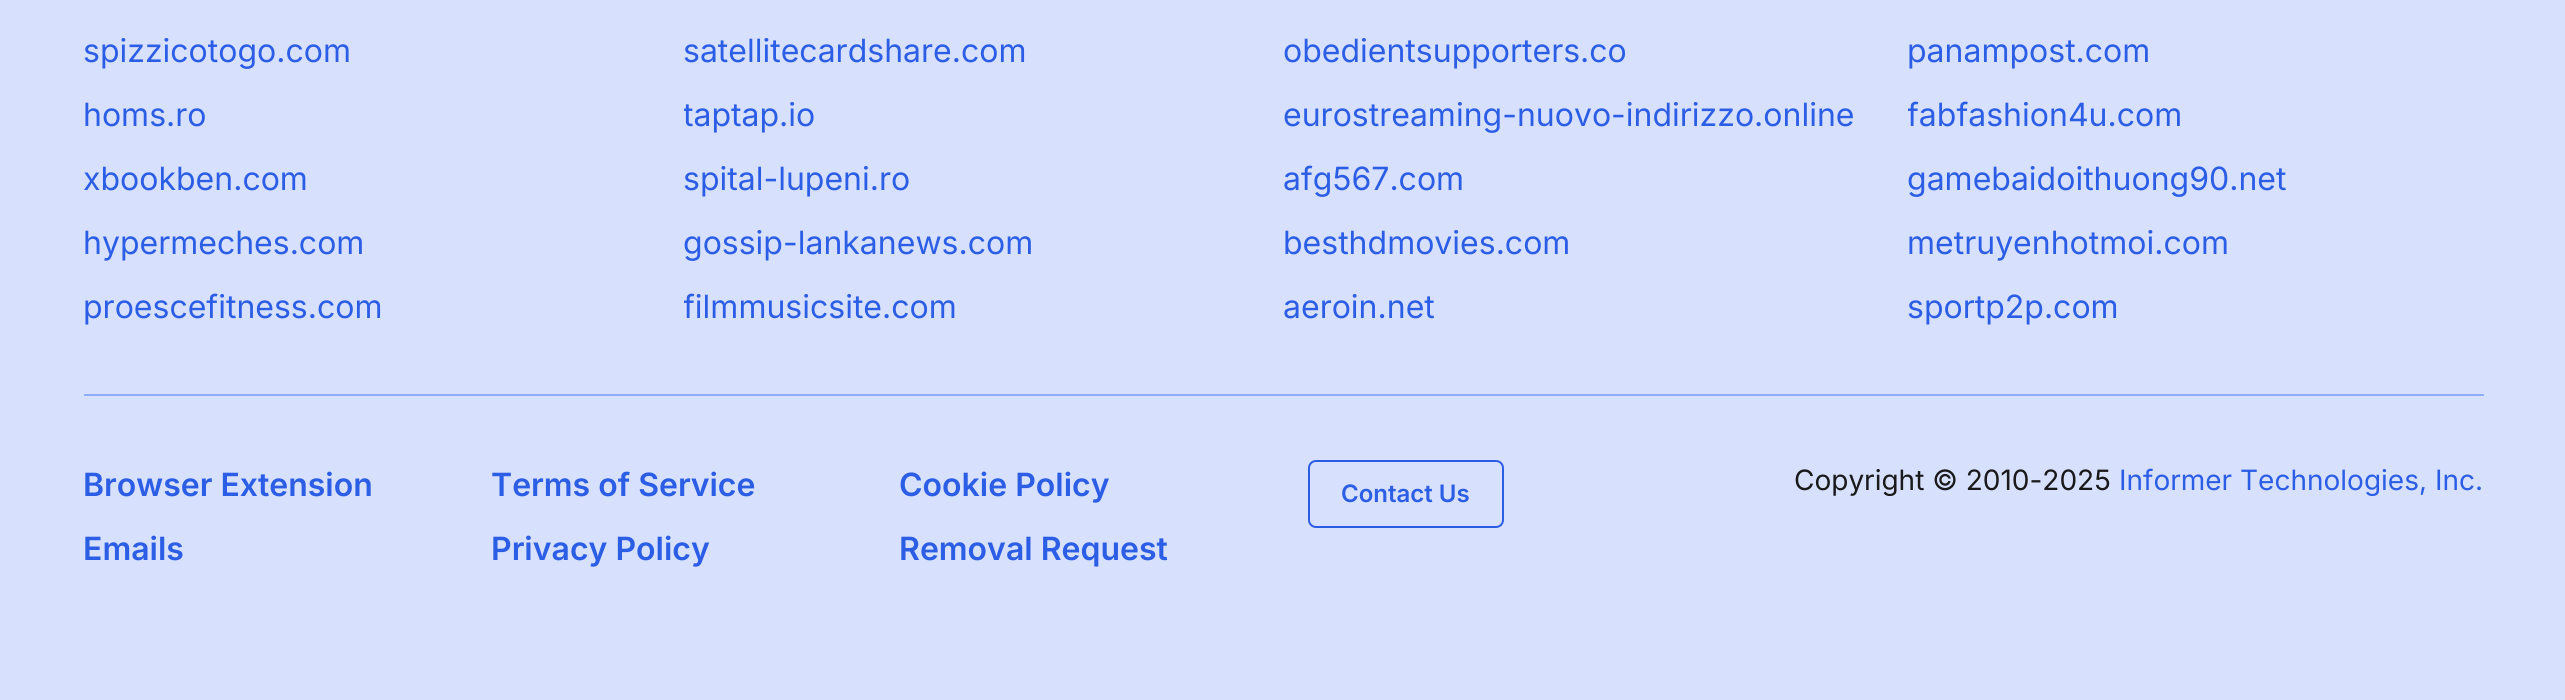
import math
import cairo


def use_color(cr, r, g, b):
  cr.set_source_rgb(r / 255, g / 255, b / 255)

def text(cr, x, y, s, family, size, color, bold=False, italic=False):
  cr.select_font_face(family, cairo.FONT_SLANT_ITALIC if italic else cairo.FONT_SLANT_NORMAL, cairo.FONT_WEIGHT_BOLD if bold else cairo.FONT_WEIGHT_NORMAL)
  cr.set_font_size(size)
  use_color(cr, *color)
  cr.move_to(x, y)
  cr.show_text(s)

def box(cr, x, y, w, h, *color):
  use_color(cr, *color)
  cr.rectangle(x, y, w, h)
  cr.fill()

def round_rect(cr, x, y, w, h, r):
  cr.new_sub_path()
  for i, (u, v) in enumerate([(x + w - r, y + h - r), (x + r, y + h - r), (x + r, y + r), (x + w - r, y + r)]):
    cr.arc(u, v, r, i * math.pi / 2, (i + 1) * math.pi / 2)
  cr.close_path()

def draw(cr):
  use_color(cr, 215, 225, 254)
  cr.paint()
  box(cr, 84, 394, 2400, 2, 145, 173, 250)
  round_rect(cr, 1309, 461, 194, 66, 7)
  use_color(cr, 44, 93, 229)
  cr.stroke()
  text(cr, 83, 62, "spizzicotogo.com", "Inter", 32, (44, 93, 229))
  text(cr, 683, 62, "satellitecardshare.com", "Inter", 32, (44, 93, 229))
  text(cr, 83, 126, "homs.ro", "Inter", 32, (44, 93, 229))
  cr.save()
  cr.rectangle(684, 90, 552, 48)
  cr.clip()
  text(cr, 683, 126, "taptap.io", "Inter", 32, (44, 93, 229))
  cr.restore()
  text(cr, 83, 190, "xbookben.com", "Inter", 32, (44, 93, 229))
  text(cr, 683, 190, "spital-lupeni.ro", "Inter", 32, (44, 93, 229))
  text(cr, 83, 254, "hypermeches.com", "Inter", 32, (44, 93, 229))
  text(cr, 683, 254, "gossip-lankanews.com", "Inter", 32, (44, 93, 229))
  text(cr, 83, 318, "proescefitness.com", "Inter", 32, (44, 93, 229))
  cr.save()
  cr.rectangle(684, 282, 552, 48)
  cr.clip()
  text(cr, 683, 318, "filmmusicsite.com", "Inter", 32, (44, 93, 229))
  cr.restore()
  text(cr, 1283, 62, "obedientsupporters.co", "Inter", 32, (44, 93, 229))
  text(cr, 1907, 62, "panampost.com", "Inter", 32, (44, 93, 229))
  text(cr, 1283, 126, "eurostreaming-nuovo-indirizzo.online", "Inter", 32, (44, 93, 229))
  cr.save()
  cr.rectangle(1908, 90, 576, 48)
  cr.clip()
  text(cr, 1907, 126, "fabfashion4u.com", "Inter", 32, (44, 93, 229))
  cr.restore()
  text(cr, 1283, 190, "afg567.com", "Inter", 32, (44, 93, 229))
  text(cr, 1907, 190, "gamebaidoithuong90.net", "Inter", 32, (44, 93, 229))
  text(cr, 1283, 254, "besthdmovies.com", "Inter", 32, (44, 93, 229))
  text(cr, 1907, 254, "metruyenhotmoi.com", "Inter", 32, (44, 93, 229))
  text(cr, 1283, 318, "aeroin.net", "Inter", 32, (44, 93, 229))
  text(cr, 1907, 318, "sportp2p.com", "Inter", 32, (44, 93, 229))
  text(cr, 83, 496, "Browser Extension", "Inter SemiBold", 32, (44, 93, 229))
  text(cr, 491, 496, "Terms of Service", "Inter SemiBold", 32, (44, 93, 229))
  text(cr, 899, 496, "Cookie Policy", "Inter SemiBold", 32, (44, 93, 229))
  text(cr, 83, 560, "Emails", "Inter SemiBold", 32, (44, 93, 229))
  text(cr, 491, 560, "Privacy Policy", "Inter SemiBold", 32, (44, 93, 229))
  text(cr, 899, 560, "Removal Request", "Inter SemiBold", 32, (44, 93, 229))
  text(cr, 1341, 502, "Contact Us", "Inter SemiBold", 24, (44, 93, 229))
  text(cr, 1794, 490, "Copyright © 2010-2025", "Inter", 28, (26, 26, 26))
  text(cr, 2119, 490, "Informer Technologies, Inc.", "Inter", 28, (44, 93, 229))


surface = cairo.ImageSurface(cairo.FORMAT_RGB24, 2565, 700)
cr = cairo.Context(surface)
options = cairo.FontOptions()
options.set_hint_metrics(cairo.HINT_METRICS_OFF)
options.set_hint_style(cairo.HINT_STYLE_NONE)
cr.set_font_options(options)
cr.set_miter_limit(4)
draw(cr)
surface.write_to_png("out.png")
